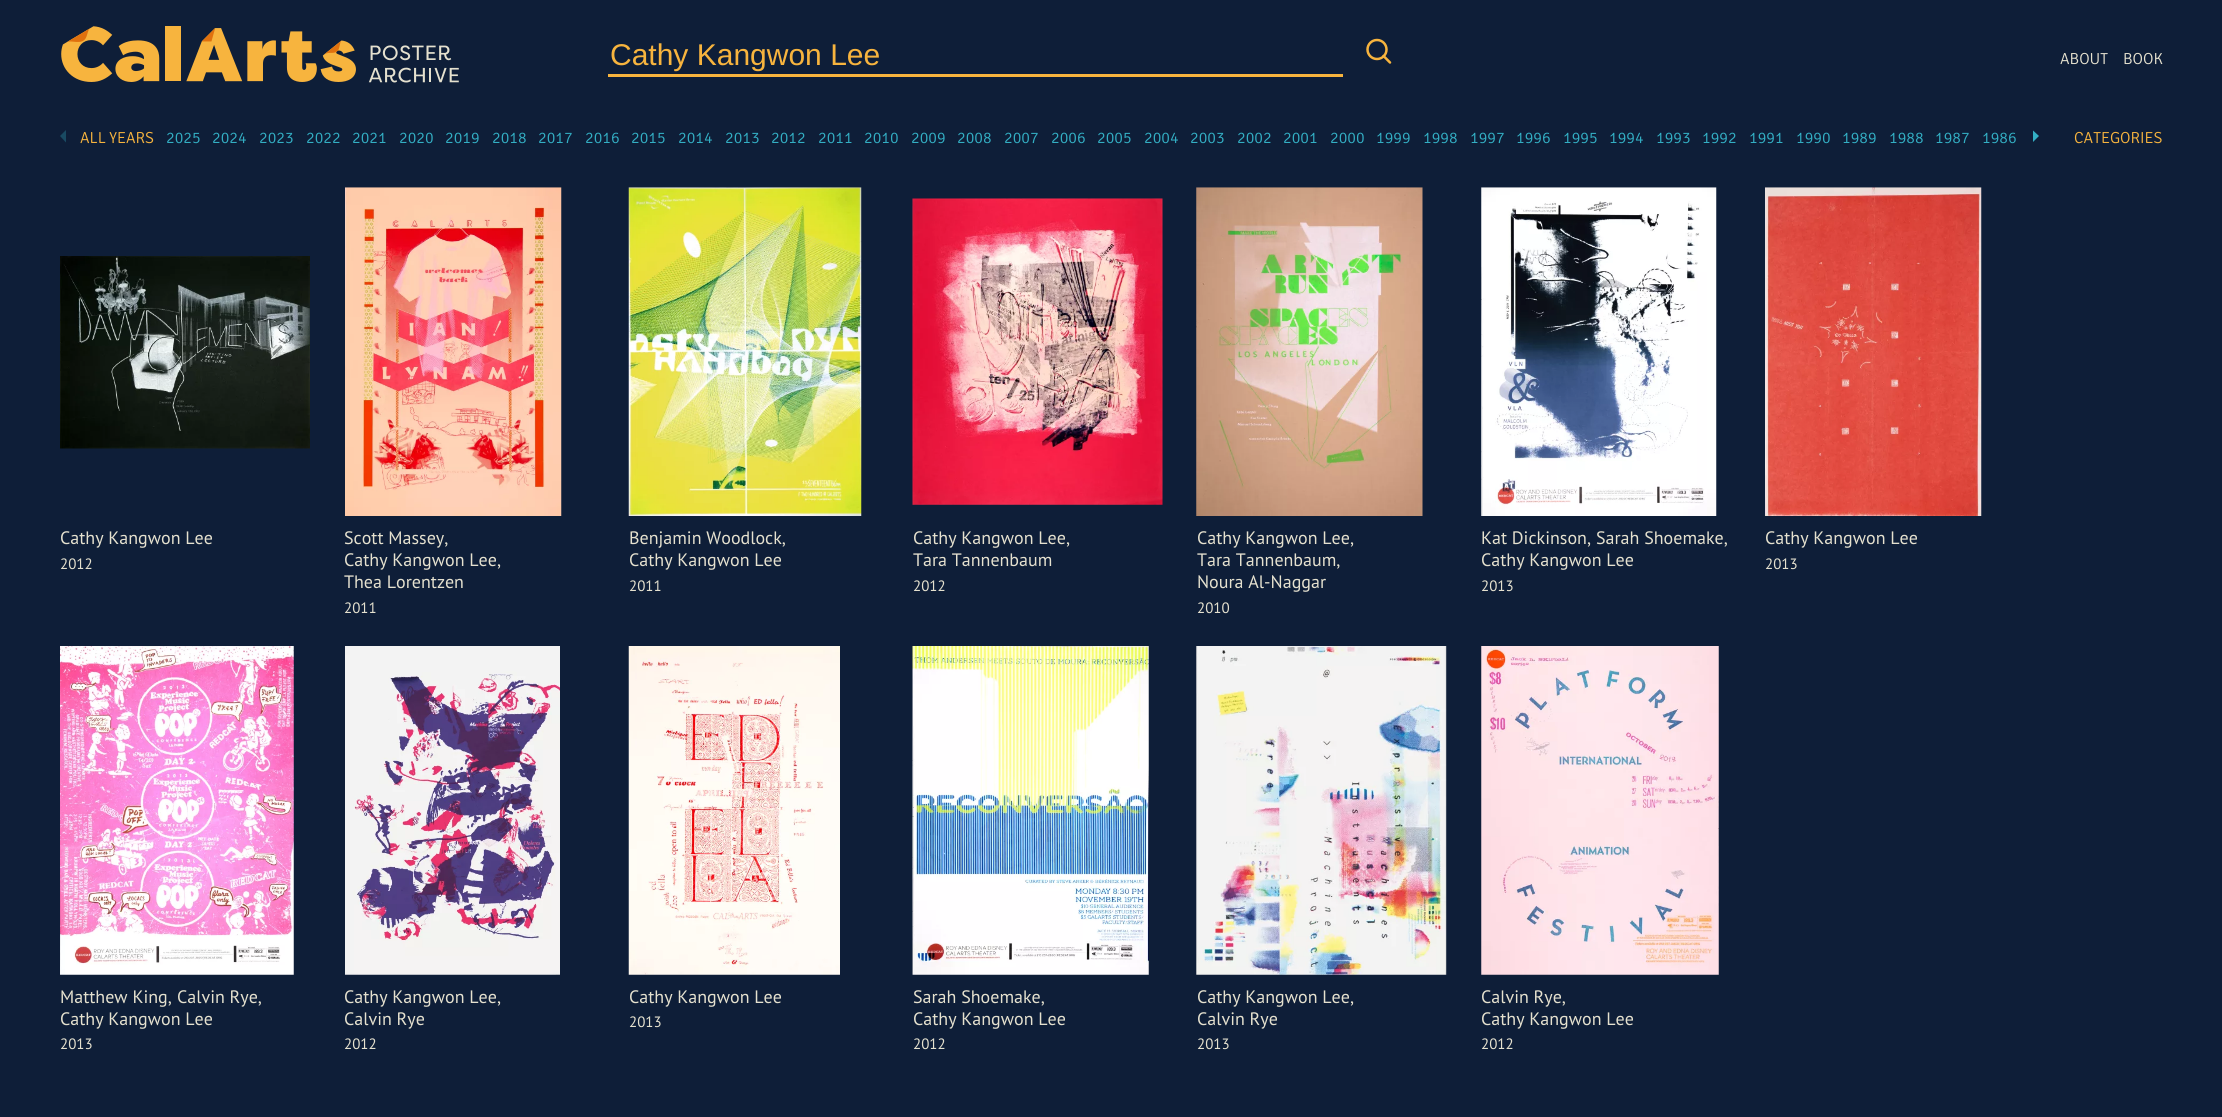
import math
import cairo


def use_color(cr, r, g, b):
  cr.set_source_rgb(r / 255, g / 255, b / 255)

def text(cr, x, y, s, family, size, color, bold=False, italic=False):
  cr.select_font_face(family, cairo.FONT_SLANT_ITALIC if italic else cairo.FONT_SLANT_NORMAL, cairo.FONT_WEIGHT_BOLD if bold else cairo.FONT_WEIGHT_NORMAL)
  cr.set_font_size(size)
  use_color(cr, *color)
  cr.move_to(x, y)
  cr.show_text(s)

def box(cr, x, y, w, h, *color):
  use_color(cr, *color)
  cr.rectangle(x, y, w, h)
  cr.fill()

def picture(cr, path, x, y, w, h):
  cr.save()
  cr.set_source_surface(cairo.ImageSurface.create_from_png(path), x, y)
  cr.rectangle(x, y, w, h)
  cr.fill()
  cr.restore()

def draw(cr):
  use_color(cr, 14, 30, 56)
  cr.paint()
  picture(cr, "img_01.png", 61, 26, 398, 57)
  box(cr, 608, 74, 735, 3, 247, 180, 62)
  cr.arc(1377, 49.5, 9.5, 0, 2 * math.pi)
  cr.set_line_width(2.5)
  cr.stroke()
  cr.new_path()
  cr.move_to(1390, 62.5)
  cr.line_to(1383.5, 56)
  cr.set_line_cap(cairo.LINE_CAP_ROUND)
  cr.set_line_join(cairo.LINE_JOIN_ROUND)
  cr.stroke()
  use_color(cr, 25, 74, 98)
  cr.new_path()
  cr.move_to(66, 130)
  cr.line_to(60, 136)
  cr.line_to(66, 142.5)
  cr.close_path()
  cr.fill()
  cr.save()
  cr.rectangle(2033, 130, 10, 13)
  cr.clip()
  use_color(cr, 51, 175, 196)
  cr.new_path()
  cr.move_to(2032.5, 130)
  cr.line_to(2032.5, 142.5)
  cr.line_to(2039, 136)
  cr.close_path()
  cr.fill()
  cr.restore()
  picture(cr, "img_02.png", 60, 256, 250, 193)
  picture(cr, "img_03.png", 345, 187, 217, 329)
  picture(cr, "img_04.png", 628, 187, 234, 329)
  picture(cr, "img_05.png", 912, 198, 251, 307)
  picture(cr, "img_06.png", 1196, 187, 227, 329)
  picture(cr, "img_07.png", 1481, 187, 236, 329)
  picture(cr, "img_08.png", 1765, 187, 217, 329)
  picture(cr, "img_09.png", 60, 646, 234, 329)
  picture(cr, "img_10.png", 345, 646, 215, 329)
  picture(cr, "img_11.png", 628, 646, 212, 329)
  picture(cr, "img_12.png", 912, 646, 237, 329)
  picture(cr, "img_13.png", 1196, 646, 251, 329)
  picture(cr, "img_14.png", 1481, 646, 238, 329)
  text(cr, 610, 65, "Cathy Kangwon Lee", "Liberation Sans", 30, (247, 180, 62))
  text(cr, 2060, 64, "ABOUT", "Signika Light", 16, (229, 225, 207))
  text(cr, 2123, 64, "BOOK", "Signika Light", 16, (229, 225, 207))
  text(cr, 80, 143, "ALL YEARS", "Signika Light", 16, (247, 180, 62))
  text(cr, 166, 143, "2025", "Signika Light", 16, (51, 175, 196))
  text(cr, 212, 143, "2024", "Signika Light", 16, (51, 175, 196))
  text(cr, 259, 143, "2023", "Signika Light", 16, (51, 175, 196))
  text(cr, 306, 143, "2022", "Signika Light", 16, (51, 175, 196))
  text(cr, 352, 143, "2021", "Signika Light", 16, (51, 175, 196))
  text(cr, 399, 143, "2020", "Signika Light", 16, (51, 175, 196))
  text(cr, 445, 143, "2019", "Signika Light", 16, (51, 175, 196))
  text(cr, 492, 143, "2018", "Signika Light", 16, (51, 175, 196))
  text(cr, 538, 143, "2017", "Signika Light", 16, (51, 175, 196))
  text(cr, 585, 143, "2016", "Signika Light", 16, (51, 175, 196))
  text(cr, 631, 143, "2015", "Signika Light", 16, (51, 175, 196))
  text(cr, 678, 143, "2014", "Signika Light", 16, (51, 175, 196))
  text(cr, 725, 143, "2013", "Signika Light", 16, (51, 175, 196))
  text(cr, 771, 143, "2012", "Signika Light", 16, (51, 175, 196))
  text(cr, 818, 143, "2011", "Signika Light", 16, (51, 175, 196))
  text(cr, 864, 143, "2010", "Signika Light", 16, (51, 175, 196))
  text(cr, 911, 143, "2009", "Signika Light", 16, (51, 175, 196))
  text(cr, 957, 143, "2008", "Signika Light", 16, (51, 175, 196))
  text(cr, 1004, 143, "2007", "Signika Light", 16, (51, 175, 196))
  text(cr, 1051, 143, "2006", "Signika Light", 16, (51, 175, 196))
  text(cr, 1097, 143, "2005", "Signika Light", 16, (51, 175, 196))
  text(cr, 1144, 143, "2004", "Signika Light", 16, (51, 175, 196))
  text(cr, 1190, 143, "2003", "Signika Light", 16, (51, 175, 196))
  text(cr, 1237, 143, "2002", "Signika Light", 16, (51, 175, 196))
  text(cr, 1283, 143, "2001", "Signika Light", 16, (51, 175, 196))
  text(cr, 1330, 143, "2000", "Signika Light", 16, (51, 175, 196))
  text(cr, 1376, 143, "1999", "Signika Light", 16, (51, 175, 196))
  text(cr, 1423, 143, "1998", "Signika Light", 16, (51, 175, 196))
  text(cr, 1470, 143, "1997", "Signika Light", 16, (51, 175, 196))
  text(cr, 1516, 143, "1996", "Signika Light", 16, (51, 175, 196))
  text(cr, 1563, 143, "1995", "Signika Light", 16, (51, 175, 196))
  text(cr, 1609, 143, "1994", "Signika Light", 16, (51, 175, 196))
  text(cr, 1656, 143, "1993", "Signika Light", 16, (51, 175, 196))
  text(cr, 1702, 143, "1992", "Signika Light", 16, (51, 175, 196))
  text(cr, 1749, 143, "1991", "Signika Light", 16, (51, 175, 196))
  text(cr, 1796, 143, "1990", "Signika Light", 16, (51, 175, 196))
  text(cr, 1842, 143, "1989", "Signika Light", 16, (51, 175, 196))
  text(cr, 1889, 143, "1988", "Signika Light", 16, (51, 175, 196))
  text(cr, 1935, 143, "1987", "Signika Light", 16, (51, 175, 196))
  text(cr, 1982, 143, "1986", "Signika Light", 16, (51, 175, 196))
  text(cr, 2074, 143, "CATEGORIES", "Signika Light", 16, (247, 180, 62))
  text(cr, 60, 544, "Cathy Kangwon Lee", "PT Sans", 18, (229, 225, 207))
  text(cr, 60, 569, "2012", "PT Sans", 15, (229, 225, 207))
  text(cr, 344, 544, "Scott Massey,", "PT Sans", 18, (229, 225, 207))
  text(cr, 344, 566, "Cathy Kangwon Lee,", "PT Sans", 18, (229, 225, 207))
  text(cr, 344, 588, "Thea Lorentzen", "PT Sans", 18, (229, 225, 207))
  text(cr, 344, 613, "2011", "PT Sans", 15, (229, 225, 207))
  text(cr, 629, 544, "Benjamin Woodlock,", "PT Sans", 18, (229, 225, 207))
  text(cr, 629, 566, "Cathy Kangwon Lee", "PT Sans", 18, (229, 225, 207))
  text(cr, 629, 591, "2011", "PT Sans", 15, (229, 225, 207))
  text(cr, 913, 544, "Cathy Kangwon Lee,", "PT Sans", 18, (229, 225, 207))
  text(cr, 913, 566, "Tara Tannenbaum", "PT Sans", 18, (229, 225, 207))
  text(cr, 913, 591, "2012", "PT Sans", 15, (229, 225, 207))
  text(cr, 1197, 544, "Cathy Kangwon Lee,", "PT Sans", 18, (229, 225, 207))
  text(cr, 1197, 566, "Tara Tannenbaum,", "PT Sans", 18, (229, 225, 207))
  text(cr, 1197, 588, "Noura Al-Naggar", "PT Sans", 18, (229, 225, 207))
  text(cr, 1197, 613, "2010", "PT Sans", 15, (229, 225, 207))
  text(cr, 1481, 544, "Kat Dickinson,", "PT Sans", 18, (229, 225, 207))
  text(cr, 1596, 544, "Sarah Shoemake,", "PT Sans", 18, (229, 225, 207))
  text(cr, 1481, 566, "Cathy Kangwon Lee", "PT Sans", 18, (229, 225, 207))
  text(cr, 1481, 591, "2013", "PT Sans", 15, (229, 225, 207))
  text(cr, 1765, 544, "Cathy Kangwon Lee", "PT Sans", 18, (229, 225, 207))
  text(cr, 1765, 569, "2013", "PT Sans", 15, (229, 225, 207))
  text(cr, 60, 1003, "Matthew King,", "PT Sans", 18, (229, 225, 207))
  text(cr, 177, 1003, "Calvin Rye,", "PT Sans", 18, (229, 225, 207))
  text(cr, 60, 1025, "Cathy Kangwon Lee", "PT Sans", 18, (229, 225, 207))
  text(cr, 60, 1049, "2013", "PT Sans", 15, (229, 225, 207))
  text(cr, 344, 1003, "Cathy Kangwon Lee,", "PT Sans", 18, (229, 225, 207))
  text(cr, 344, 1025, "Calvin Rye", "PT Sans", 18, (229, 225, 207))
  text(cr, 344, 1049, "2012", "PT Sans", 15, (229, 225, 207))
  text(cr, 629, 1003, "Cathy Kangwon Lee", "PT Sans", 18, (229, 225, 207))
  text(cr, 629, 1027, "2013", "PT Sans", 15, (229, 225, 207))
  text(cr, 913, 1003, "Sarah Shoemake,", "PT Sans", 18, (229, 225, 207))
  text(cr, 913, 1025, "Cathy Kangwon Lee", "PT Sans", 18, (229, 225, 207))
  text(cr, 913, 1049, "2012", "PT Sans", 15, (229, 225, 207))
  text(cr, 1197, 1003, "Cathy Kangwon Lee,", "PT Sans", 18, (229, 225, 207))
  text(cr, 1197, 1025, "Calvin Rye", "PT Sans", 18, (229, 225, 207))
  text(cr, 1197, 1049, "2013", "PT Sans", 15, (229, 225, 207))
  text(cr, 1481, 1003, "Calvin Rye,", "PT Sans", 18, (229, 225, 207))
  text(cr, 1481, 1025, "Cathy Kangwon Lee", "PT Sans", 18, (229, 225, 207))
  text(cr, 1481, 1049, "2012", "PT Sans", 15, (229, 225, 207))


surface = cairo.ImageSurface(cairo.FORMAT_RGB24, 2222, 1117)
cr = cairo.Context(surface)
options = cairo.FontOptions()
options.set_hint_metrics(cairo.HINT_METRICS_OFF)
options.set_hint_style(cairo.HINT_STYLE_NONE)
cr.set_font_options(options)
cr.set_miter_limit(4)
draw(cr)
surface.write_to_png("out.png")
